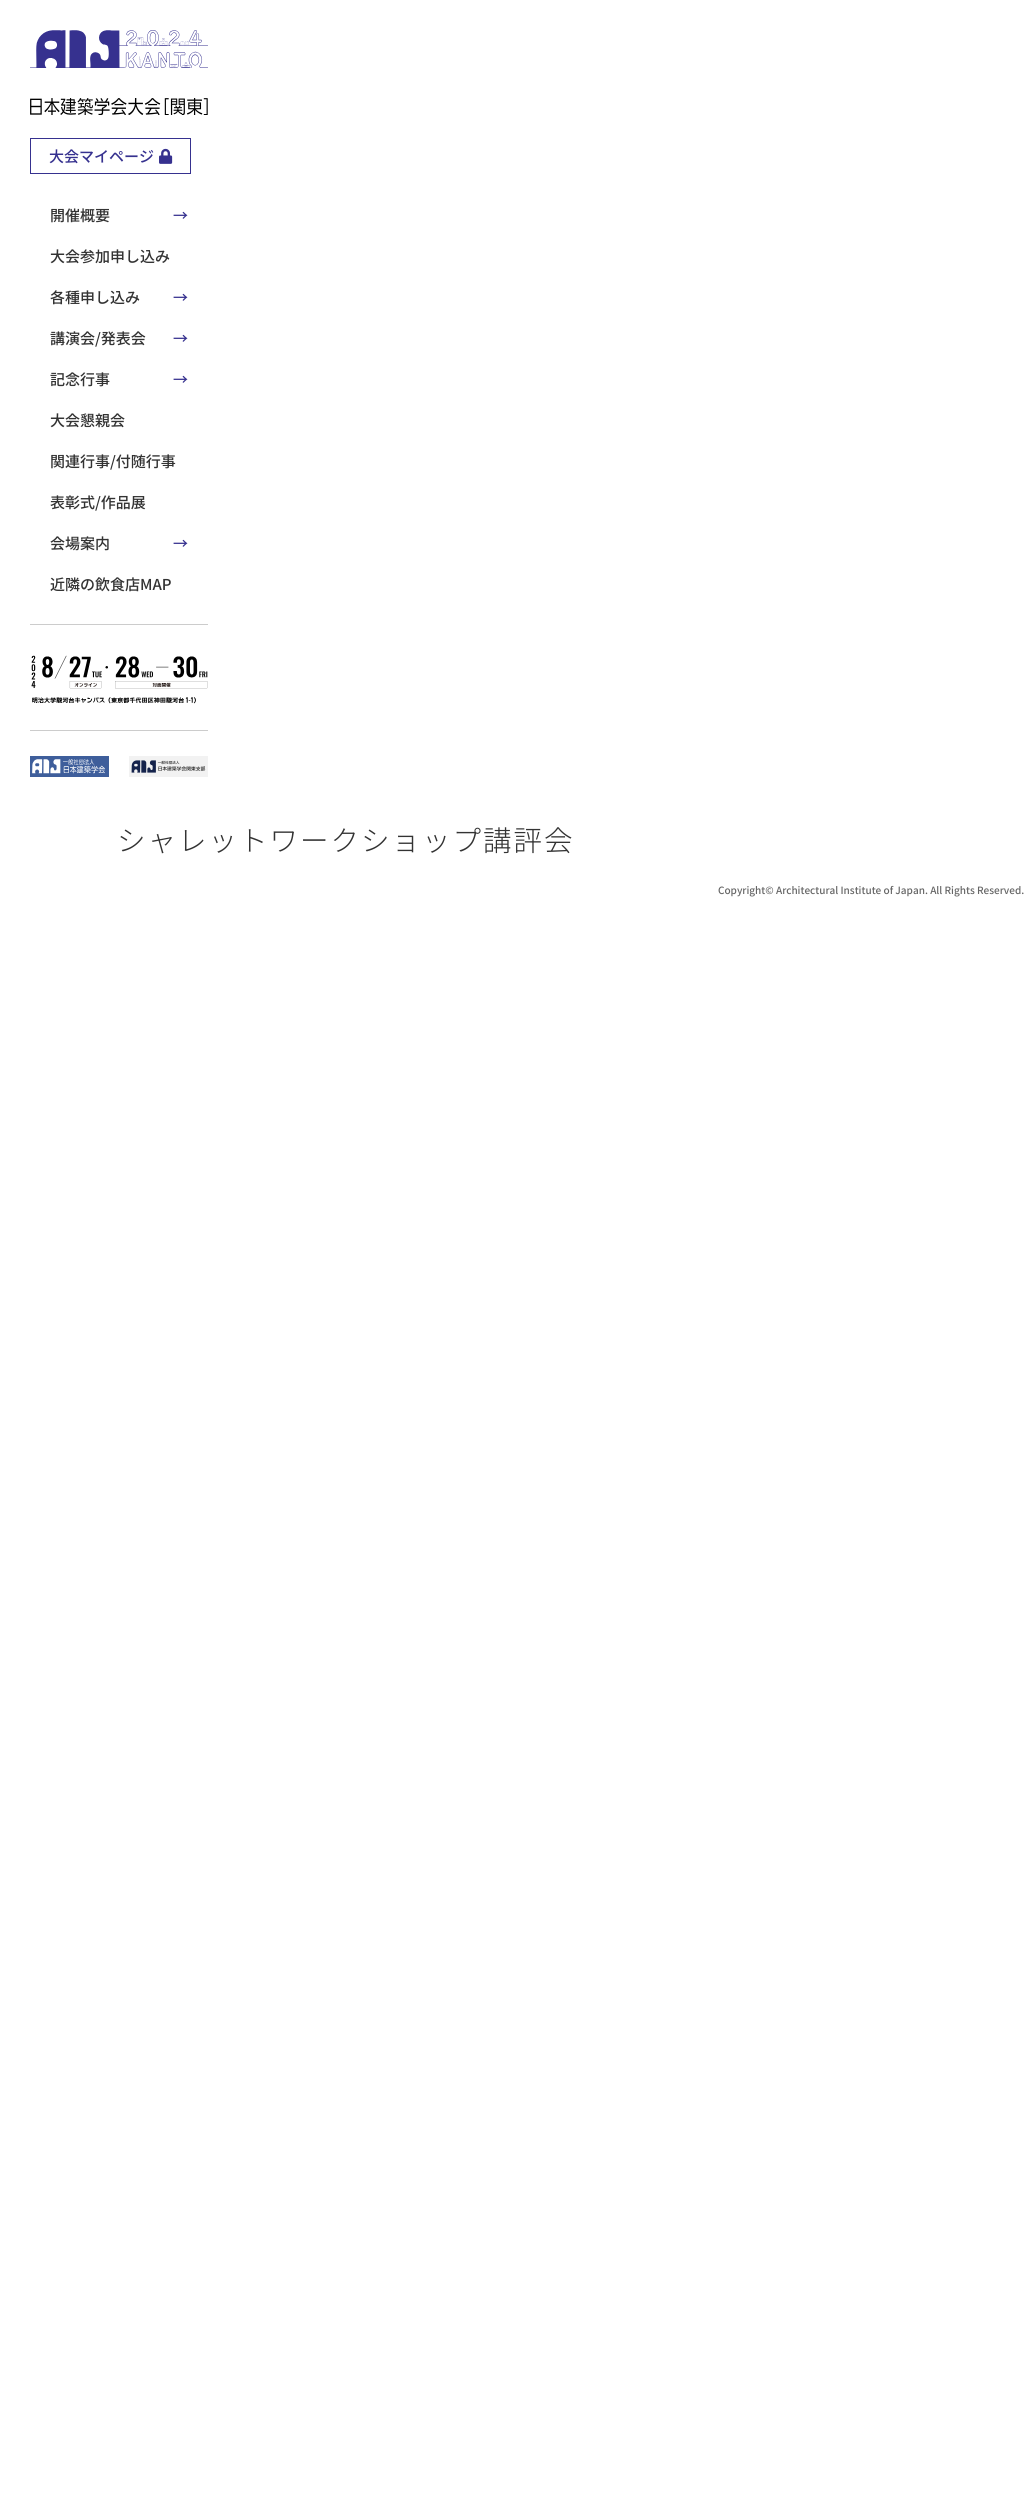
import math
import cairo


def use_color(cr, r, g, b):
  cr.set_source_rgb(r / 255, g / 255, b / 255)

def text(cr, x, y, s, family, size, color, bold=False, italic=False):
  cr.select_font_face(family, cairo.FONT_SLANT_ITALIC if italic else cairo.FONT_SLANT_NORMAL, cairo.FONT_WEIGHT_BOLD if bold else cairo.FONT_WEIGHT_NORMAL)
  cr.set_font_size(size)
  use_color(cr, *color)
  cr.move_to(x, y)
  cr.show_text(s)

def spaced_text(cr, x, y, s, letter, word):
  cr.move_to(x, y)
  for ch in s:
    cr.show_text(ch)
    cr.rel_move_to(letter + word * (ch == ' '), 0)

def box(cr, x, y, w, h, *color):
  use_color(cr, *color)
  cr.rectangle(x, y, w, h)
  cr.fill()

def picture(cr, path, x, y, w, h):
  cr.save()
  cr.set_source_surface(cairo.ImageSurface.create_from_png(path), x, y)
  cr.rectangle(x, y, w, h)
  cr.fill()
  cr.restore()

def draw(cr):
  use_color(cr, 255, 255, 255)
  cr.paint()
  picture(cr, "img_01.png", 30, 30, 178, 38)
  picture(cr, "img_02.png", 30, 98, 178, 17)
  cr.rectangle(30.5, 138.5, 160, 35)
  use_color(cr, 54, 49, 143)
  cr.set_line_width(1)
  cr.stroke()
  picture(cr, "img_03.png", 159, 148, 14, 16)
  box(cr, 30, 624, 178, 1, 204, 204, 204)
  box(cr, 30, 730, 178, 1, 204, 204, 204)
  picture(cr, "img_04.png", 31, 655, 177, 49)
  picture(cr, "img_05.png", 30, 756, 79, 21)
  picture(cr, "img_06.png", 129, 756, 79, 21)
  text(cr, 49, 162, "大会マイページ", "Noto Sans JP Medium", 15, (54, 49, 143))
  text(cr, 50, 221, "開催概要", "Noto Sans JP Medium", 15, (51, 51, 51))
  text(cr, 173, 221, "→", "Noto Sans JP Medium", 15, (54, 49, 143))
  text(cr, 50, 262, "大会参加申し込み", "Noto Sans JP Medium", 15, (51, 51, 51))
  text(cr, 50, 303, "各種申し込み", "Noto Sans JP Medium", 15, (51, 51, 51))
  text(cr, 173, 303, "→", "Noto Sans JP Medium", 15, (54, 49, 143))
  text(cr, 50, 344, "講演会/発表会", "Noto Sans JP Medium", 15, (51, 51, 51))
  text(cr, 173, 344, "→", "Noto Sans JP Medium", 15, (54, 49, 143))
  text(cr, 50, 385, "記念行事", "Noto Sans JP Medium", 15, (51, 51, 51))
  text(cr, 173, 385, "→", "Noto Sans JP Medium", 15, (54, 49, 143))
  text(cr, 50, 426, "大会懇親会", "Noto Sans JP Medium", 15, (51, 51, 51))
  text(cr, 50, 467, "関連行事/付随行事", "Noto Sans JP Medium", 15, (51, 51, 51))
  text(cr, 50, 508, "表彰式/作品展", "Noto Sans JP Medium", 15, (51, 51, 51))
  text(cr, 50, 549, "会場案内", "Noto Sans JP Medium", 15, (51, 51, 51))
  text(cr, 173, 549, "→", "Noto Sans JP Medium", 15, (54, 49, 143))
  text(cr, 50, 590, "近隣の飲食店MAP", "Noto Sans JP Medium", 15, (51, 51, 51))
  cr.select_font_face("Noto Sans JP Light")
  cr.set_font_size(28.5)
  spaced_text(cr, 117, 851, "シャレットワークショップ講評会", 2, 0)
  text(cr, 718, 894, "Copyright© Architectural Institute of Japan. All Rights Reserved.", "Noto Sans JP Medium", 10, (102, 102, 102))


surface = cairo.ImageSurface(cairo.FORMAT_RGB24, 1034, 2506)
cr = cairo.Context(surface)
options = cairo.FontOptions()
options.set_hint_metrics(cairo.HINT_METRICS_OFF)
options.set_hint_style(cairo.HINT_STYLE_NONE)
cr.set_font_options(options)
cr.set_miter_limit(4)
draw(cr)
surface.write_to_png("out.png")
